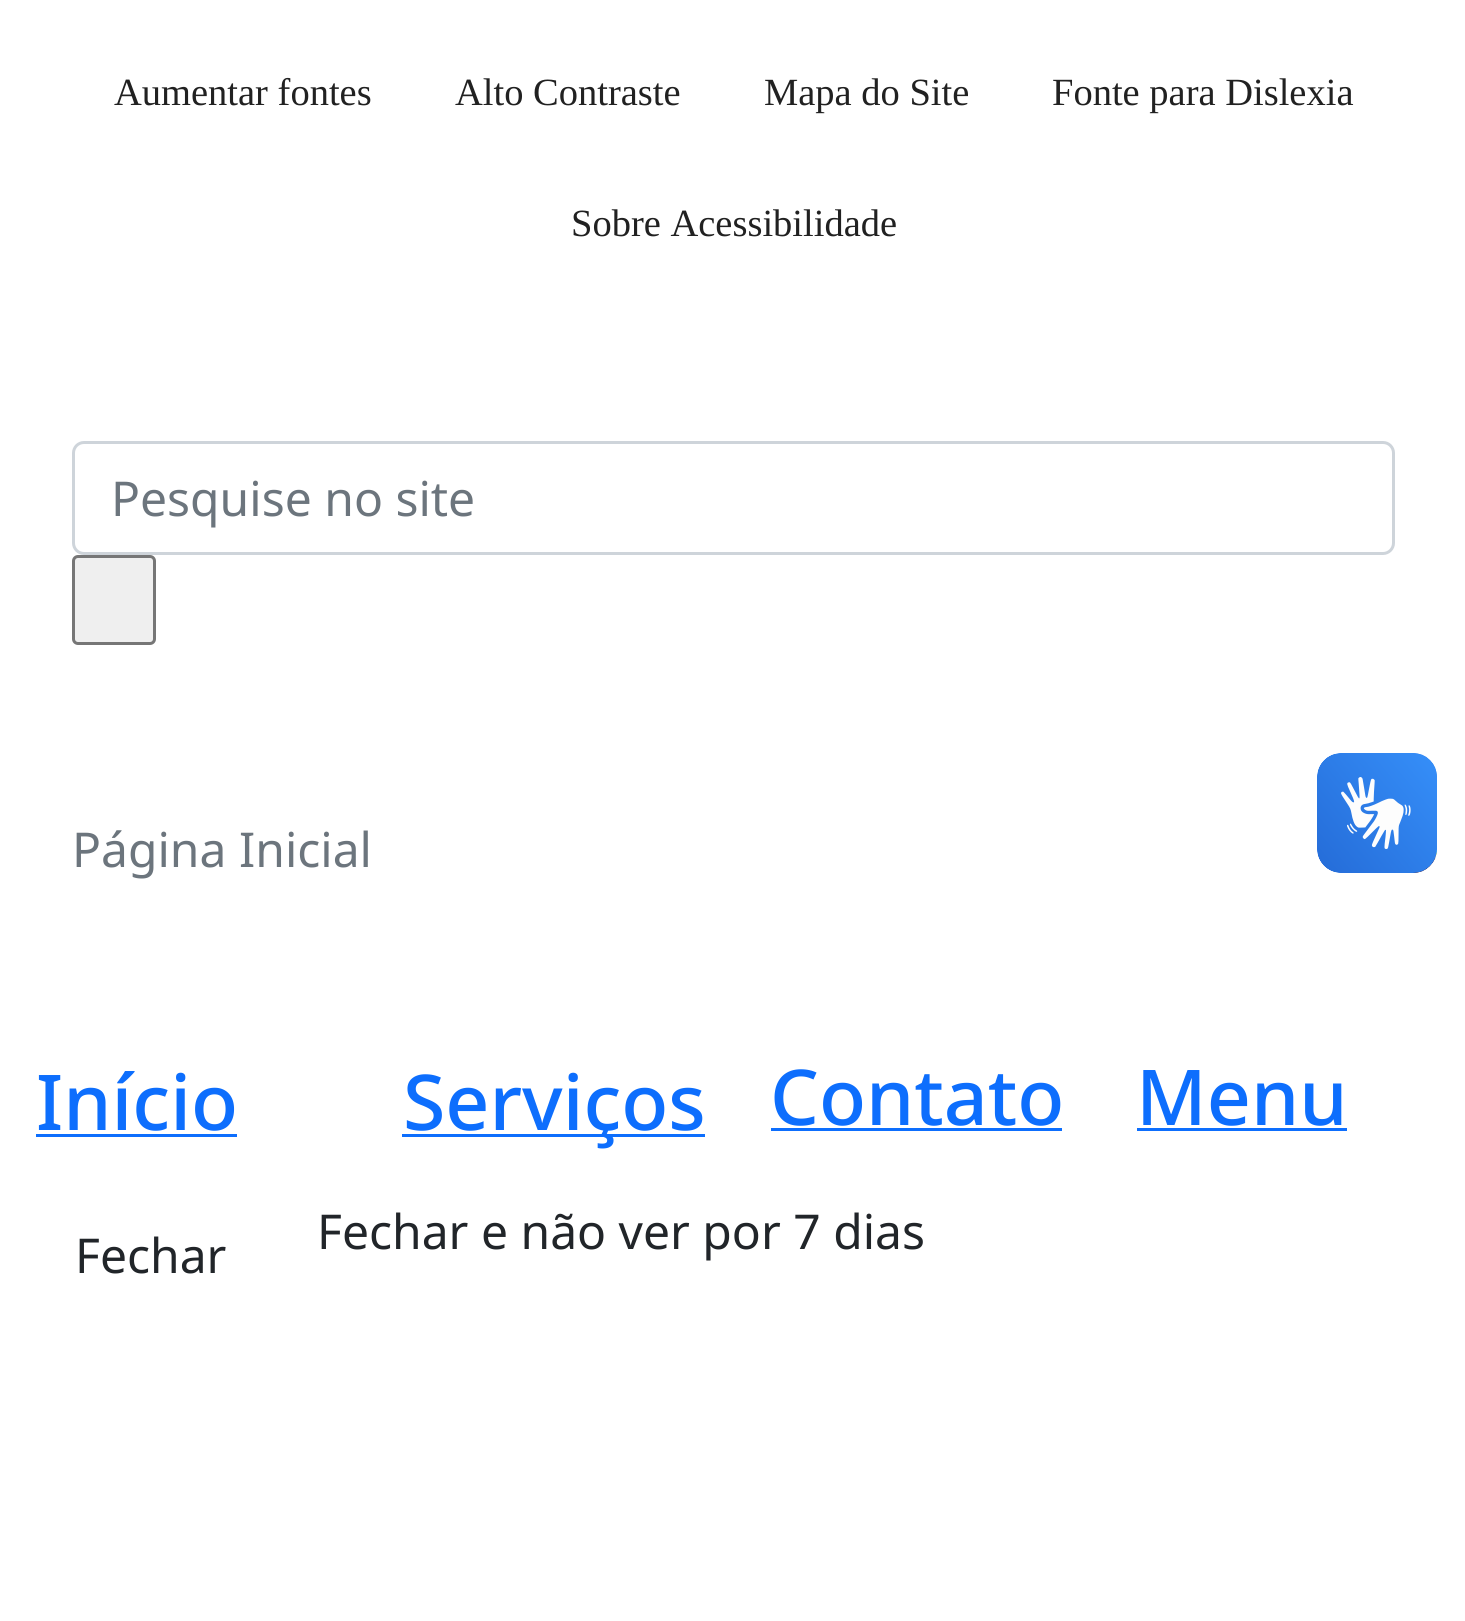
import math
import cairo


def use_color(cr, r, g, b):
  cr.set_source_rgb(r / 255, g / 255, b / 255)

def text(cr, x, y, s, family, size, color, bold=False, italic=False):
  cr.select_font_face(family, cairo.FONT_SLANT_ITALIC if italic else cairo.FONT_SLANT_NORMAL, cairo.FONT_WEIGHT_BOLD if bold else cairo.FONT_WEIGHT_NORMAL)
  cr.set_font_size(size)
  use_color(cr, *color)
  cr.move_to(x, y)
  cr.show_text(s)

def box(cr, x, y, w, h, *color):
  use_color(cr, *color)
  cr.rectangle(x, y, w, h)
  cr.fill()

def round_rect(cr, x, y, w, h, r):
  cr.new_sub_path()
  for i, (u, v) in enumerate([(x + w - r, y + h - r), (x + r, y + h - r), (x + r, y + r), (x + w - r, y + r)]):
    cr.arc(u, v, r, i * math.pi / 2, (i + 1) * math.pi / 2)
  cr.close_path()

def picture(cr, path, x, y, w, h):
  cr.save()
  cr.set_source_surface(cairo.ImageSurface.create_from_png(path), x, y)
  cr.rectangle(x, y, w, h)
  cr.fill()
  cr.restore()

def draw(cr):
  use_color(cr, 255, 255, 255)
  cr.paint()
  round_rect(cr, 73.5, 442.5, 1320, 111, 10.5)
  use_color(cr, 206, 212, 218)
  cr.set_line_width(3)
  cr.stroke()
  use_color(cr, 239, 239, 239)
  round_rect(cr, 73.5, 556.5, 81, 87, 4.5)
  cr.fill_preserve()
  use_color(cr, 118, 118, 118)
  cr.stroke()
  box(cr, 36, 1134, 201, 3, 13, 110, 253)
  box(cr, 402, 1134, 303, 3, 13, 110, 253)
  box(cr, 771, 1128, 291, 3, 13, 110, 253)
  box(cr, 1137, 1128, 210, 3, 13, 110, 253)
  picture(cr, "img_01.png", 1317, 753, 120, 120)
  picture(cr, "img_02.png", 1317, 753, 120, 120)
  text(cr, 114, 105, "Aumentar fontes", "Liberation Serif", 38.5, (33, 33, 33))
  text(cr, 455, 105, "Alto Contraste", "Liberation Serif", 38.5, (33, 33, 33))
  text(cr, 764, 105, "Mapa do Site", "Liberation Serif", 38.5, (33, 33, 33))
  text(cr, 1052, 105, "Fonte para Dislexia", "Liberation Serif", 38.5, (33, 33, 33))
  text(cr, 571, 236, "Sobre Acessibilidade", "Liberation Serif", 38.5, (33, 33, 33))
  text(cr, 111, 516, "Pesquise no site", "Noto Sans", 48, (108, 117, 125))
  text(cr, 72, 867, "Página Inicial", "Noto Sans", 48, (108, 117, 125))
  text(cr, 36, 1130, "Início", "Noto Sans Medium", 77, (13, 110, 253))
  text(cr, 403, 1130, "Serviços", "Noto Sans Medium", 77, (13, 110, 253))
  text(cr, 770, 1125, "Contato", "Noto Sans Medium", 77, (13, 110, 253))
  text(cr, 1136, 1125, "Menu", "Noto Sans Medium", 77, (13, 110, 253))
  text(cr, 75, 1273, "Fechar", "Noto Sans", 48, (33, 37, 41))
  text(cr, 317, 1249, "Fechar e não ver por 7 dias", "Noto Sans", 48, (33, 37, 41))


surface = cairo.ImageSurface(cairo.FORMAT_RGB24, 1465, 1621)
cr = cairo.Context(surface)
options = cairo.FontOptions()
options.set_hint_metrics(cairo.HINT_METRICS_OFF)
options.set_hint_style(cairo.HINT_STYLE_NONE)
cr.set_font_options(options)
cr.set_miter_limit(4)
draw(cr)
surface.write_to_png("out.png")
